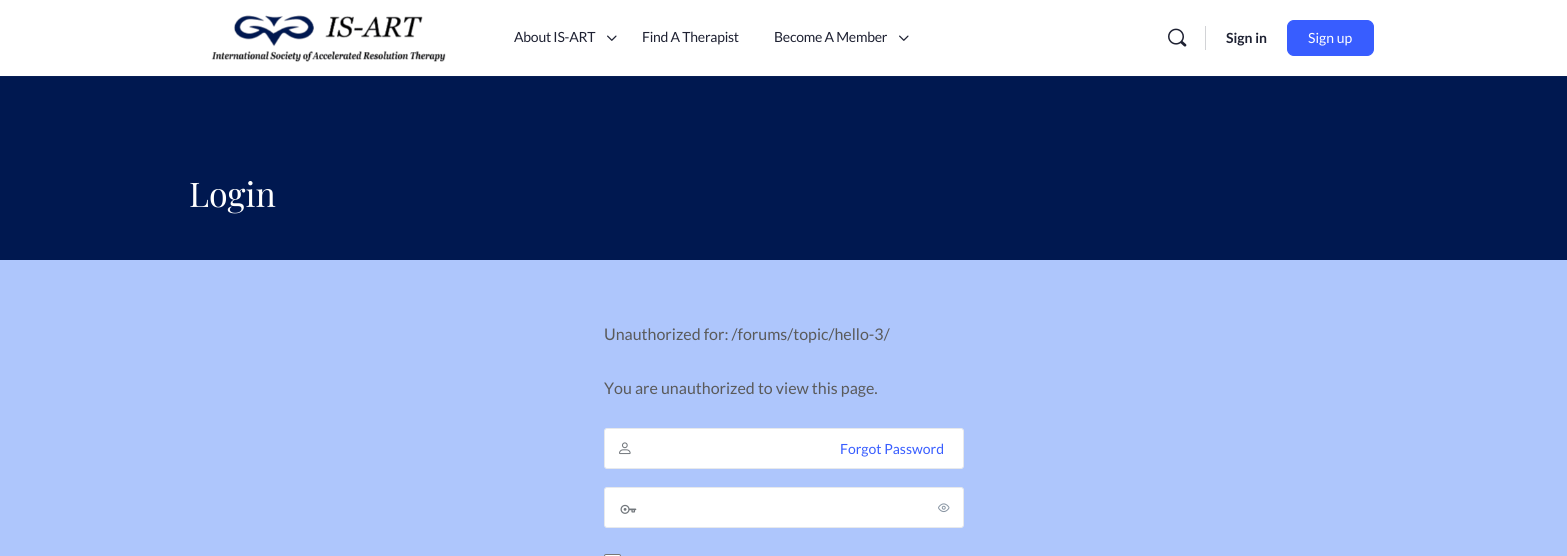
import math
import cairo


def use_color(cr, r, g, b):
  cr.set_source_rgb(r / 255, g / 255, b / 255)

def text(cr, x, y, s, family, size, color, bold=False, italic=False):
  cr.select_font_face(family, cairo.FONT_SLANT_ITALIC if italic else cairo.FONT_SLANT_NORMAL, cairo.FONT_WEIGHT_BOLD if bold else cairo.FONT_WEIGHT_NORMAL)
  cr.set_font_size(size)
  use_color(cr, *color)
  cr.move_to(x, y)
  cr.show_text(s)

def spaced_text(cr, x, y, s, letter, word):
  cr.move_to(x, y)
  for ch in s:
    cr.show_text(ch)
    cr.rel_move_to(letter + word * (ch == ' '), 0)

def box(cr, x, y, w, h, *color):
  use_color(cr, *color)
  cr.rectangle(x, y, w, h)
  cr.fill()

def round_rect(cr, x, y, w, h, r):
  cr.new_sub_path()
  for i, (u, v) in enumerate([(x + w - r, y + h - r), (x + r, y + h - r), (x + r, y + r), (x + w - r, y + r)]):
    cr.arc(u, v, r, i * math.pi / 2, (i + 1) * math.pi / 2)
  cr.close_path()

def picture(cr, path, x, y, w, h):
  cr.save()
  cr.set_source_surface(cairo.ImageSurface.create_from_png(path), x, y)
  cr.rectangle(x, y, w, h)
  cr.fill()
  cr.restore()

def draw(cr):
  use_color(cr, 174, 198, 252)
  cr.paint()
  box(cr, 0, 76, 1567, 1, 7, 30, 84)
  box(cr, 0, 0, 1567, 76, 255, 255, 255)
  picture(cr, "img_01.png", 211, 15, 235, 47)
  picture(cr, "img_02.png", 607, 35, 10, 6)
  picture(cr, "img_02.png", 899, 35, 10, 6)
  picture(cr, "img_03.png", 1168, 28, 19, 19)
  box(cr, 1205, 26, 1, 24, 210, 211, 214)
  use_color(cr, 56, 93, 255)
  round_rect(cr, 1287.5, 20.5, 86, 35, 6.5)
  cr.fill_preserve()
  cr.set_line_width(1)
  cr.stroke()
  box(cr, 0, 77, 1567, 183, 0, 24, 80)
  use_color(cr, 255, 255, 255)
  round_rect(cr, 604.5, 428.5, 359, 40, 2.5)
  cr.fill_preserve()
  use_color(cr, 231, 233, 236)
  cr.stroke()
  picture(cr, "img_04.png", 619, 442, 12, 13)
  use_color(cr, 255, 255, 255)
  round_rect(cr, 604.5, 487.5, 359, 40, 2.5)
  cr.fill_preserve()
  use_color(cr, 231, 233, 236)
  cr.stroke()
  picture(cr, "img_05.png", 938, 503, 12, 10)
  picture(cr, "img_06.png", 620, 504, 17, 10)
  use_color(cr, 255, 255, 255)
  round_rect(cr, 604.5, 554.5, 16, 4, 1.5)
  cr.fill_preserve()
  use_color(cr, 118, 118, 118)
  cr.stroke()
  cr.select_font_face("Lato")
  cr.set_font_size(14)
  use_color(cr, 30, 33, 50)
  spaced_text(cr, 514, 42, "About IS-ART", -0.25, 0)
  spaced_text(cr, 642, 42, "Find A Therapist", -0.25, 0)
  spaced_text(cr, 774, 42, "Become A Member", -0.25, 0)
  text(cr, 1226, 43, "Sign in", "Lato", 14, (30, 33, 50), bold=True)
  text(cr, 1308, 43, "Sign up", "Lato", 14, (255, 255, 255))
  text(cr, 189, 207, "Login", "Playfair Display", 34, (255, 255, 255))
  text(cr, 604, 340, "Unauthorized for: /forums/topic/hello-3/", "Lato", 16, (90, 90, 90))
  text(cr, 604, 394, "You are unauthorized to view this page.", "Lato", 16, (90, 90, 90))
  text(cr, 840, 454, "Forgot Password", "Lato", 14, (56, 93, 255))


surface = cairo.ImageSurface(cairo.FORMAT_RGB24, 1567, 556)
cr = cairo.Context(surface)
options = cairo.FontOptions()
options.set_hint_metrics(cairo.HINT_METRICS_OFF)
options.set_hint_style(cairo.HINT_STYLE_NONE)
cr.set_font_options(options)
cr.set_miter_limit(4)
draw(cr)
surface.write_to_png("out.png")
